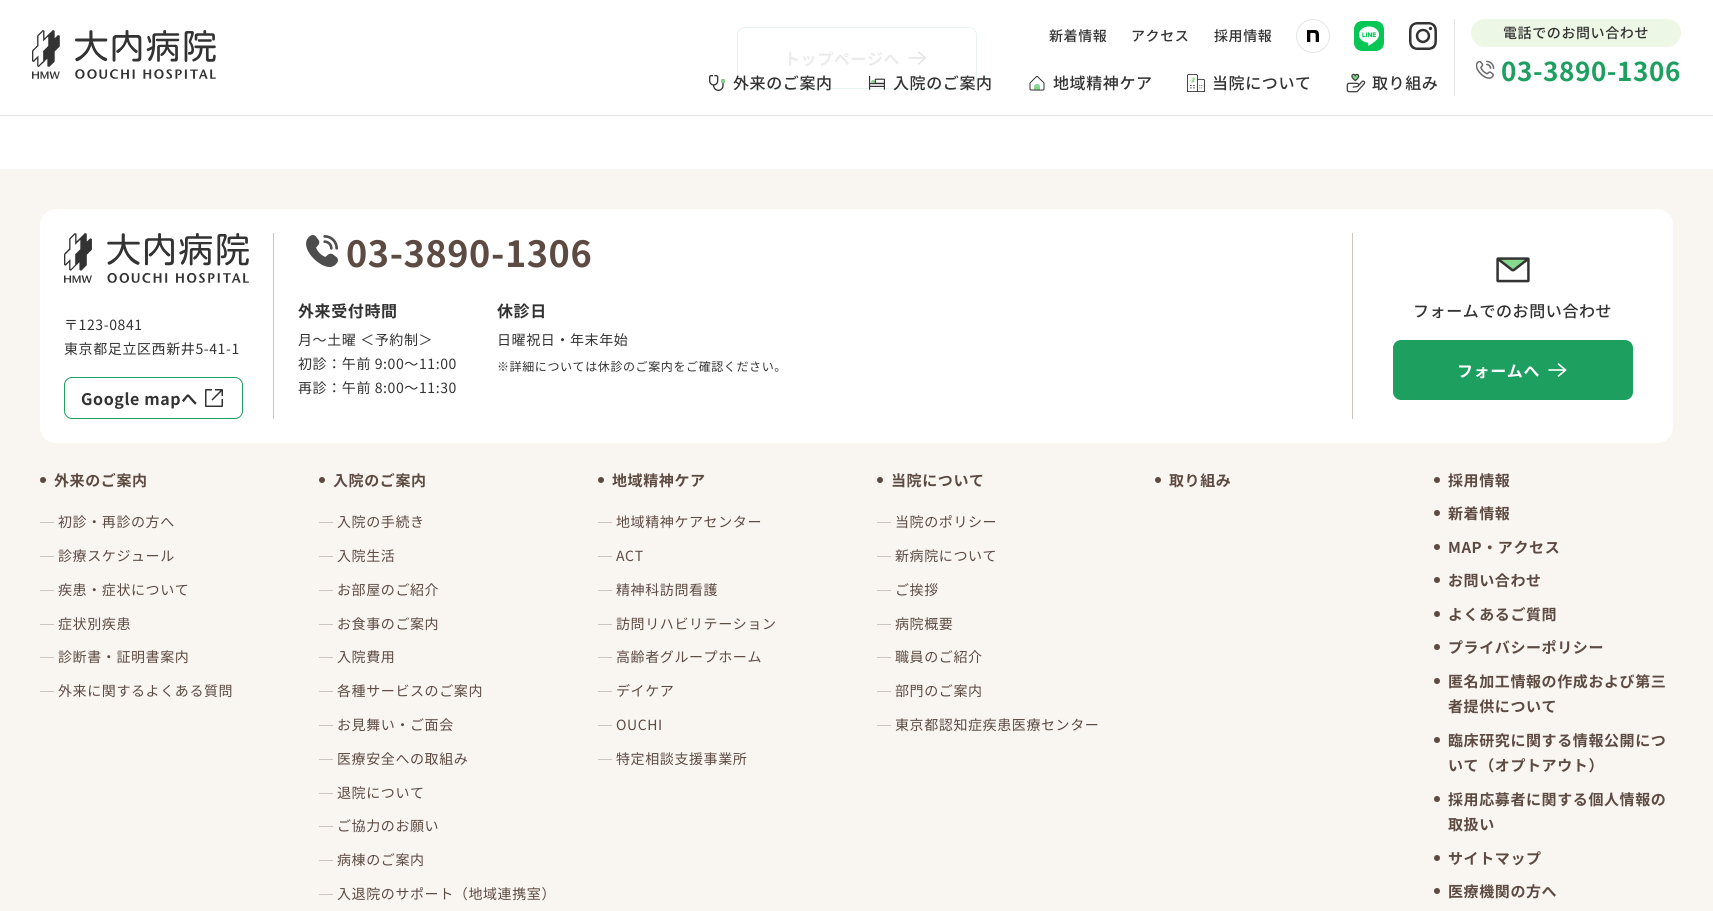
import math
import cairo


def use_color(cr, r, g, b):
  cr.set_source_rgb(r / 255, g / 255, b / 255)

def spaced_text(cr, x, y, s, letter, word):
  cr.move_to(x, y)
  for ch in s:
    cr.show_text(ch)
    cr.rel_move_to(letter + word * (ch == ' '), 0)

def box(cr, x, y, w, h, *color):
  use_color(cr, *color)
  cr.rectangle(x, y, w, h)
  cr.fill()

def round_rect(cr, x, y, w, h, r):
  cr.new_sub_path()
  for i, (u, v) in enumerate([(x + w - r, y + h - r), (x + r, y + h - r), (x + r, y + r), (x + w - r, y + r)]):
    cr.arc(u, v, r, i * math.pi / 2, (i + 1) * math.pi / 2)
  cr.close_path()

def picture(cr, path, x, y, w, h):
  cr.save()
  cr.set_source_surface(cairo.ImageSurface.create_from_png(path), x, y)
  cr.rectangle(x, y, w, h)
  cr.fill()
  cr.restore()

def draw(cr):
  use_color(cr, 255, 255, 255)
  cr.paint()
  box(cr, 0, 115, 1713, 1, 229, 229, 229)
  picture(cr, "img_01.png", 32, 30, 184, 49)
  picture(cr, "img_02.png", 1296, 19, 34, 34)
  picture(cr, "img_03.png", 1354, 21, 30, 30)
  picture(cr, "img_04.png", 1409, 22, 28, 28)
  picture(cr, "img_05.png", 709, 75, 16, 16)
  round_rect(cr, 737.5, 27.5, 239, 61, 7.5)
  use_color(cr, 232, 245, 239)
  cr.set_line_width(1)
  cr.stroke()
  picture(cr, "img_06.png", 869, 76, 16, 14)
  picture(cr, "img_07.png", 1029, 76, 16, 15)
  picture(cr, "img_08.png", 1187, 74, 18, 18)
  picture(cr, "img_09.png", 1346, 73, 20, 20)
  box(cr, 1454, 19, 1, 77, 229, 229, 229)
  use_color(cr, 236, 248, 229)
  round_rect(cr, 1471, 19, 210, 28, 14)
  cr.fill()
  picture(cr, "img_10.png", 1476, 60, 19, 19)
  picture(cr, "img_11.png", 908, 51, 19, 14)
  box(cr, 0, 169, 1713, 742, 249, 246, 241)
  use_color(cr, 255, 255, 255)
  round_rect(cr, 40, 209, 1633, 234, 16)
  cr.fill()
  box(cr, 273, 233, 1, 186, 205, 197, 192)
  picture(cr, "img_12.png", 64, 233, 185, 50)
  round_rect(cr, 64.5, 377.5, 178, 41, 7.5)
  use_color(cr, 29, 159, 96)
  cr.stroke()
  picture(cr, "img_13.png", 205, 389, 18, 18)
  picture(cr, "img_14.png", 306, 235, 32, 32)
  box(cr, 1352, 233, 1, 186, 205, 197, 192)
  picture(cr, "img_15.png", 1496, 257, 34, 26)
  use_color(cr, 29, 159, 96)
  round_rect(cr, 1393, 340, 240, 60, 8)
  cr.fill()
  picture(cr, "img_16.png", 1548, 363, 19, 14)
  use_color(cr, 93, 75, 67)
  cr.arc(43, 480, 3, 0, 2 * math.pi)
  cr.fill()
  box(cr, 40, 522, 14, 1, 205, 197, 192)
  box(cr, 40, 556, 14, 1, 205, 197, 192)
  box(cr, 40, 590, 14, 1, 205, 197, 192)
  box(cr, 40, 624, 14, 1, 205, 197, 192)
  box(cr, 40, 657, 14, 1, 205, 197, 192)
  box(cr, 40, 691, 14, 1, 205, 197, 192)
  use_color(cr, 93, 75, 67)
  cr.arc(322, 480, 3, 0, 2 * math.pi)
  cr.fill()
  box(cr, 319, 522, 14, 1, 205, 197, 192)
  box(cr, 319, 556, 14, 1, 205, 197, 192)
  box(cr, 319, 590, 14, 1, 205, 197, 192)
  box(cr, 319, 624, 14, 1, 205, 197, 192)
  box(cr, 319, 657, 14, 1, 205, 197, 192)
  box(cr, 319, 691, 14, 1, 205, 197, 192)
  box(cr, 319, 725, 14, 1, 205, 197, 192)
  box(cr, 319, 759, 14, 1, 205, 197, 192)
  box(cr, 319, 793, 14, 1, 205, 197, 192)
  box(cr, 319, 826, 14, 1, 205, 197, 192)
  box(cr, 319, 860, 14, 1, 205, 197, 192)
  box(cr, 319, 894, 14, 1, 205, 197, 192)
  use_color(cr, 93, 75, 67)
  cr.arc(601, 480, 3, 0, 2 * math.pi)
  cr.fill()
  box(cr, 598, 522, 14, 1, 205, 197, 192)
  box(cr, 598, 556, 14, 1, 205, 197, 192)
  box(cr, 598, 590, 14, 1, 205, 197, 192)
  box(cr, 598, 624, 14, 1, 205, 197, 192)
  box(cr, 598, 657, 14, 1, 205, 197, 192)
  box(cr, 598, 691, 14, 1, 205, 197, 192)
  box(cr, 598, 725, 14, 1, 205, 197, 192)
  box(cr, 598, 759, 14, 1, 205, 197, 192)
  use_color(cr, 93, 75, 67)
  cr.arc(880, 480, 3, 0, 2 * math.pi)
  cr.fill()
  box(cr, 877, 522, 14, 1, 205, 197, 192)
  box(cr, 877, 556, 14, 1, 205, 197, 192)
  box(cr, 877, 590, 14, 1, 205, 197, 192)
  box(cr, 877, 624, 14, 1, 205, 197, 192)
  box(cr, 877, 657, 14, 1, 205, 197, 192)
  box(cr, 877, 691, 14, 1, 205, 197, 192)
  box(cr, 877, 725, 14, 1, 205, 197, 192)
  use_color(cr, 93, 75, 67)
  cr.arc(1158, 480, 3, 0, 2 * math.pi)
  cr.fill()
  cr.arc(1437, 480, 3, 0, 2 * math.pi)
  cr.fill()
  cr.arc(1437, 513, 3, 0, 2 * math.pi)
  cr.fill()
  cr.arc(1437, 547, 3, 0, 2 * math.pi)
  cr.fill()
  cr.arc(1437, 580, 3, 0, 2 * math.pi)
  cr.fill()
  cr.arc(1437, 614, 3, 0, 2 * math.pi)
  cr.fill()
  cr.arc(1437, 647, 3, 0, 2 * math.pi)
  cr.fill()
  cr.arc(1437, 681, 3, 0, 2 * math.pi)
  cr.fill()
  cr.arc(1437, 740, 3, 0, 2 * math.pi)
  cr.fill()
  cr.arc(1437, 799, 3, 0, 2 * math.pi)
  cr.fill()
  cr.arc(1437, 858, 3, 0, 2 * math.pi)
  cr.fill()
  cr.arc(1437, 891, 3, 0, 2 * math.pi)
  cr.fill()
  cr.select_font_face("Noto Sans JP Medium")
  cr.set_font_size(14)
  use_color(cr, 51, 51, 51)
  spaced_text(cr, 1049, 41, "新着情報", 0.6, 0)
  spaced_text(cr, 1131, 41, "アクセス", 0.6, 0)
  spaced_text(cr, 1214, 41, "採用情報", 0.6, 0)
  cr.set_font_size(16)
  spaced_text(cr, 733, 89, "外来のご案内", 0.6, 0)
  spaced_text(cr, 893, 89, "入院のご案内", 0.6, 0)
  spaced_text(cr, 1053, 89, "地域精神ケア", 0.6, 0)
  spaced_text(cr, 1212, 89, "当院について", 0.6, 0)
  spaced_text(cr, 1372, 89, "取り組み", 0.6, 0)
  cr.set_font_size(14)
  spaced_text(cr, 1503, 38, "電話でのお問い合わせ", 0.6, 0)
  cr.select_font_face("Noto Sans JP", cairo.FONT_SLANT_NORMAL, cairo.FONT_WEIGHT_BOLD)
  cr.set_font_size(26)
  use_color(cr, 29, 159, 96)
  spaced_text(cr, 1501, 81, "03-3890-1306", 0.6, 0)
  cr.set_font_size(16)
  use_color(cr, 235, 235, 235)
  spaced_text(cr, 784, 65, "トップページへ", 0.6, 0)
  cr.select_font_face("Noto Sans JP")
  cr.set_font_size(14)
  use_color(cr, 51, 51, 51)
  spaced_text(cr, 64, 330, "〒123-0841", 0.6, 0)
  spaced_text(cr, 64, 354, "東京都足立区西新井5-41-1", 0.6, 0)
  cr.select_font_face("Noto Sans JP", cairo.FONT_SLANT_NORMAL, cairo.FONT_WEIGHT_BOLD)
  cr.set_font_size(16)
  spaced_text(cr, 81, 405, "Google mapへ", 0.6, 0)
  cr.set_font_size(36)
  use_color(cr, 93, 75, 67)
  spaced_text(cr, 346, 267, "03-3890-1306", 0.6, 0)
  cr.set_font_size(16)
  use_color(cr, 51, 51, 51)
  spaced_text(cr, 298, 317, "外来受付時間", 0.6, 0)
  cr.select_font_face("Noto Sans JP")
  cr.set_font_size(14)
  spaced_text(cr, 298, 345, "月～土曜 ＜予約制＞", 0.6, 0)
  spaced_text(cr, 298, 369, "初診：午前 9:00～11:00", 0.6, 0)
  spaced_text(cr, 298, 393, "再診：午前 8:00～11:30", 0.6, 0)
  cr.select_font_face("Noto Sans JP", cairo.FONT_SLANT_NORMAL, cairo.FONT_WEIGHT_BOLD)
  cr.set_font_size(16)
  spaced_text(cr, 497, 317, "休診日", 0.6, 0)
  cr.select_font_face("Noto Sans JP")
  cr.set_font_size(14)
  spaced_text(cr, 497, 345, "日曜祝日・年末年始", 0.6, 0)
  cr.set_font_size(12)
  spaced_text(cr, 497, 371, "※詳細については休診のご案内をご確認ください。", 0.6, 0)
  cr.select_font_face("Noto Sans JP Medium")
  cr.set_font_size(16)
  spaced_text(cr, 1413, 317, "フォームでのお問い合わせ", 0.6, 0)
  cr.select_font_face("Noto Sans JP", cairo.FONT_SLANT_NORMAL, cairo.FONT_WEIGHT_BOLD)
  use_color(cr, 255, 255, 255)
  spaced_text(cr, 1457, 377, "フォームへ", 0.6, 0)
  cr.set_font_size(15)
  use_color(cr, 93, 75, 67)
  spaced_text(cr, 54, 486, "外来のご案内", 0.6, 0)
  cr.select_font_face("Noto Sans JP")
  cr.set_font_size(14)
  spaced_text(cr, 58, 527, "初診・再診の方へ", 0.6, 0)
  spaced_text(cr, 58, 561, "診療スケジュール", 0.6, 0)
  spaced_text(cr, 58, 595, "疾患・症状について", 0.6, 0)
  spaced_text(cr, 58, 629, "症状別疾患", 0.6, 0)
  spaced_text(cr, 58, 662, "診断書・証明書案内", 0.6, 0)
  spaced_text(cr, 58, 696, "外来に関するよくある質問", 0.6, 0)
  cr.select_font_face("Noto Sans JP", cairo.FONT_SLANT_NORMAL, cairo.FONT_WEIGHT_BOLD)
  cr.set_font_size(15)
  spaced_text(cr, 333, 486, "入院のご案内", 0.6, 0)
  cr.select_font_face("Noto Sans JP")
  cr.set_font_size(14)
  spaced_text(cr, 337, 527, "入院の手続き", 0.6, 0)
  spaced_text(cr, 337, 561, "入院生活", 0.6, 0)
  spaced_text(cr, 337, 595, "お部屋のご紹介", 0.6, 0)
  spaced_text(cr, 337, 629, "お食事のご案内", 0.6, 0)
  spaced_text(cr, 337, 662, "入院費用", 0.6, 0)
  spaced_text(cr, 337, 696, "各種サービスのご案内", 0.6, 0)
  spaced_text(cr, 337, 730, "お見舞い・ご面会", 0.6, 0)
  spaced_text(cr, 337, 764, "医療安全への取組み", 0.6, 0)
  spaced_text(cr, 337, 798, "退院について", 0.6, 0)
  spaced_text(cr, 337, 831, "ご協力のお願い", 0.6, 0)
  spaced_text(cr, 337, 865, "病棟のご案内", 0.6, 0)
  spaced_text(cr, 337, 899, "入退院のサポート（地域連携室）", 0.6, 0)
  cr.select_font_face("Noto Sans JP", cairo.FONT_SLANT_NORMAL, cairo.FONT_WEIGHT_BOLD)
  cr.set_font_size(15)
  spaced_text(cr, 612, 486, "地域精神ケア", 0.6, 0)
  cr.select_font_face("Noto Sans JP")
  cr.set_font_size(14)
  spaced_text(cr, 616, 527, "地域精神ケアセンター", 0.6, 0)
  spaced_text(cr, 616, 561, "ACT", 0.6, 0)
  spaced_text(cr, 616, 595, "精神科訪問看護", 0.6, 0)
  spaced_text(cr, 616, 629, "訪問リハビリテーション", 0.6, 0)
  spaced_text(cr, 616, 662, "高齢者グループホーム", 0.6, 0)
  spaced_text(cr, 616, 696, "デイケア", 0.6, 0)
  spaced_text(cr, 616, 730, "OUCHI", 0.6, 0)
  spaced_text(cr, 616, 764, "特定相談支援事業所", 0.6, 0)
  cr.select_font_face("Noto Sans JP", cairo.FONT_SLANT_NORMAL, cairo.FONT_WEIGHT_BOLD)
  cr.set_font_size(15)
  spaced_text(cr, 891, 486, "当院について", 0.6, 0)
  cr.select_font_face("Noto Sans JP")
  cr.set_font_size(14)
  spaced_text(cr, 895, 527, "当院のポリシー", 0.6, 0)
  spaced_text(cr, 895, 561, "新病院について", 0.6, 0)
  spaced_text(cr, 895, 595, "ご挨拶", 0.6, 0)
  spaced_text(cr, 895, 629, "病院概要", 0.6, 0)
  spaced_text(cr, 895, 662, "職員のご紹介", 0.6, 0)
  spaced_text(cr, 895, 696, "部門のご案内", 0.6, 0)
  spaced_text(cr, 895, 730, "東京都認知症疾患医療センター", 0.6, 0)
  cr.select_font_face("Noto Sans JP", cairo.FONT_SLANT_NORMAL, cairo.FONT_WEIGHT_BOLD)
  cr.set_font_size(15)
  spaced_text(cr, 1169, 486, "取り組み", 0.6, 0)
  spaced_text(cr, 1448, 486, "採用情報", 0.6, 0)
  spaced_text(cr, 1448, 519, "新着情報", 0.6, 0)
  spaced_text(cr, 1448, 553, "MAP・アクセス", 0.6, 0)
  spaced_text(cr, 1448, 586, "お問い合わせ", 0.6, 0)
  spaced_text(cr, 1448, 620, "よくあるご質問", 0.6, 0)
  spaced_text(cr, 1448, 653, "プライバシーポリシー", 0.6, 0)
  spaced_text(cr, 1448, 687, "匿名加工情報の作成および第三", 0.6, 0)
  spaced_text(cr, 1448, 712, "者提供について", 0.6, 0)
  spaced_text(cr, 1448, 746, "臨床研究に関する情報公開につ", 0.6, 0)
  spaced_text(cr, 1448, 771, "いて（オプトアウト）", 0.6, 0)
  spaced_text(cr, 1448, 805, "採用応募者に関する個人情報の", 0.6, 0)
  spaced_text(cr, 1448, 830, "取扱い", 0.6, 0)
  spaced_text(cr, 1448, 864, "サイトマップ", 0.6, 0)
  spaced_text(cr, 1448, 897, "医療機関の方へ", 0.6, 0)


surface = cairo.ImageSurface(cairo.FORMAT_RGB24, 1713, 911)
cr = cairo.Context(surface)
options = cairo.FontOptions()
options.set_hint_metrics(cairo.HINT_METRICS_OFF)
options.set_hint_style(cairo.HINT_STYLE_NONE)
cr.set_font_options(options)
cr.set_miter_limit(4)
draw(cr)
surface.write_to_png("out.png")
